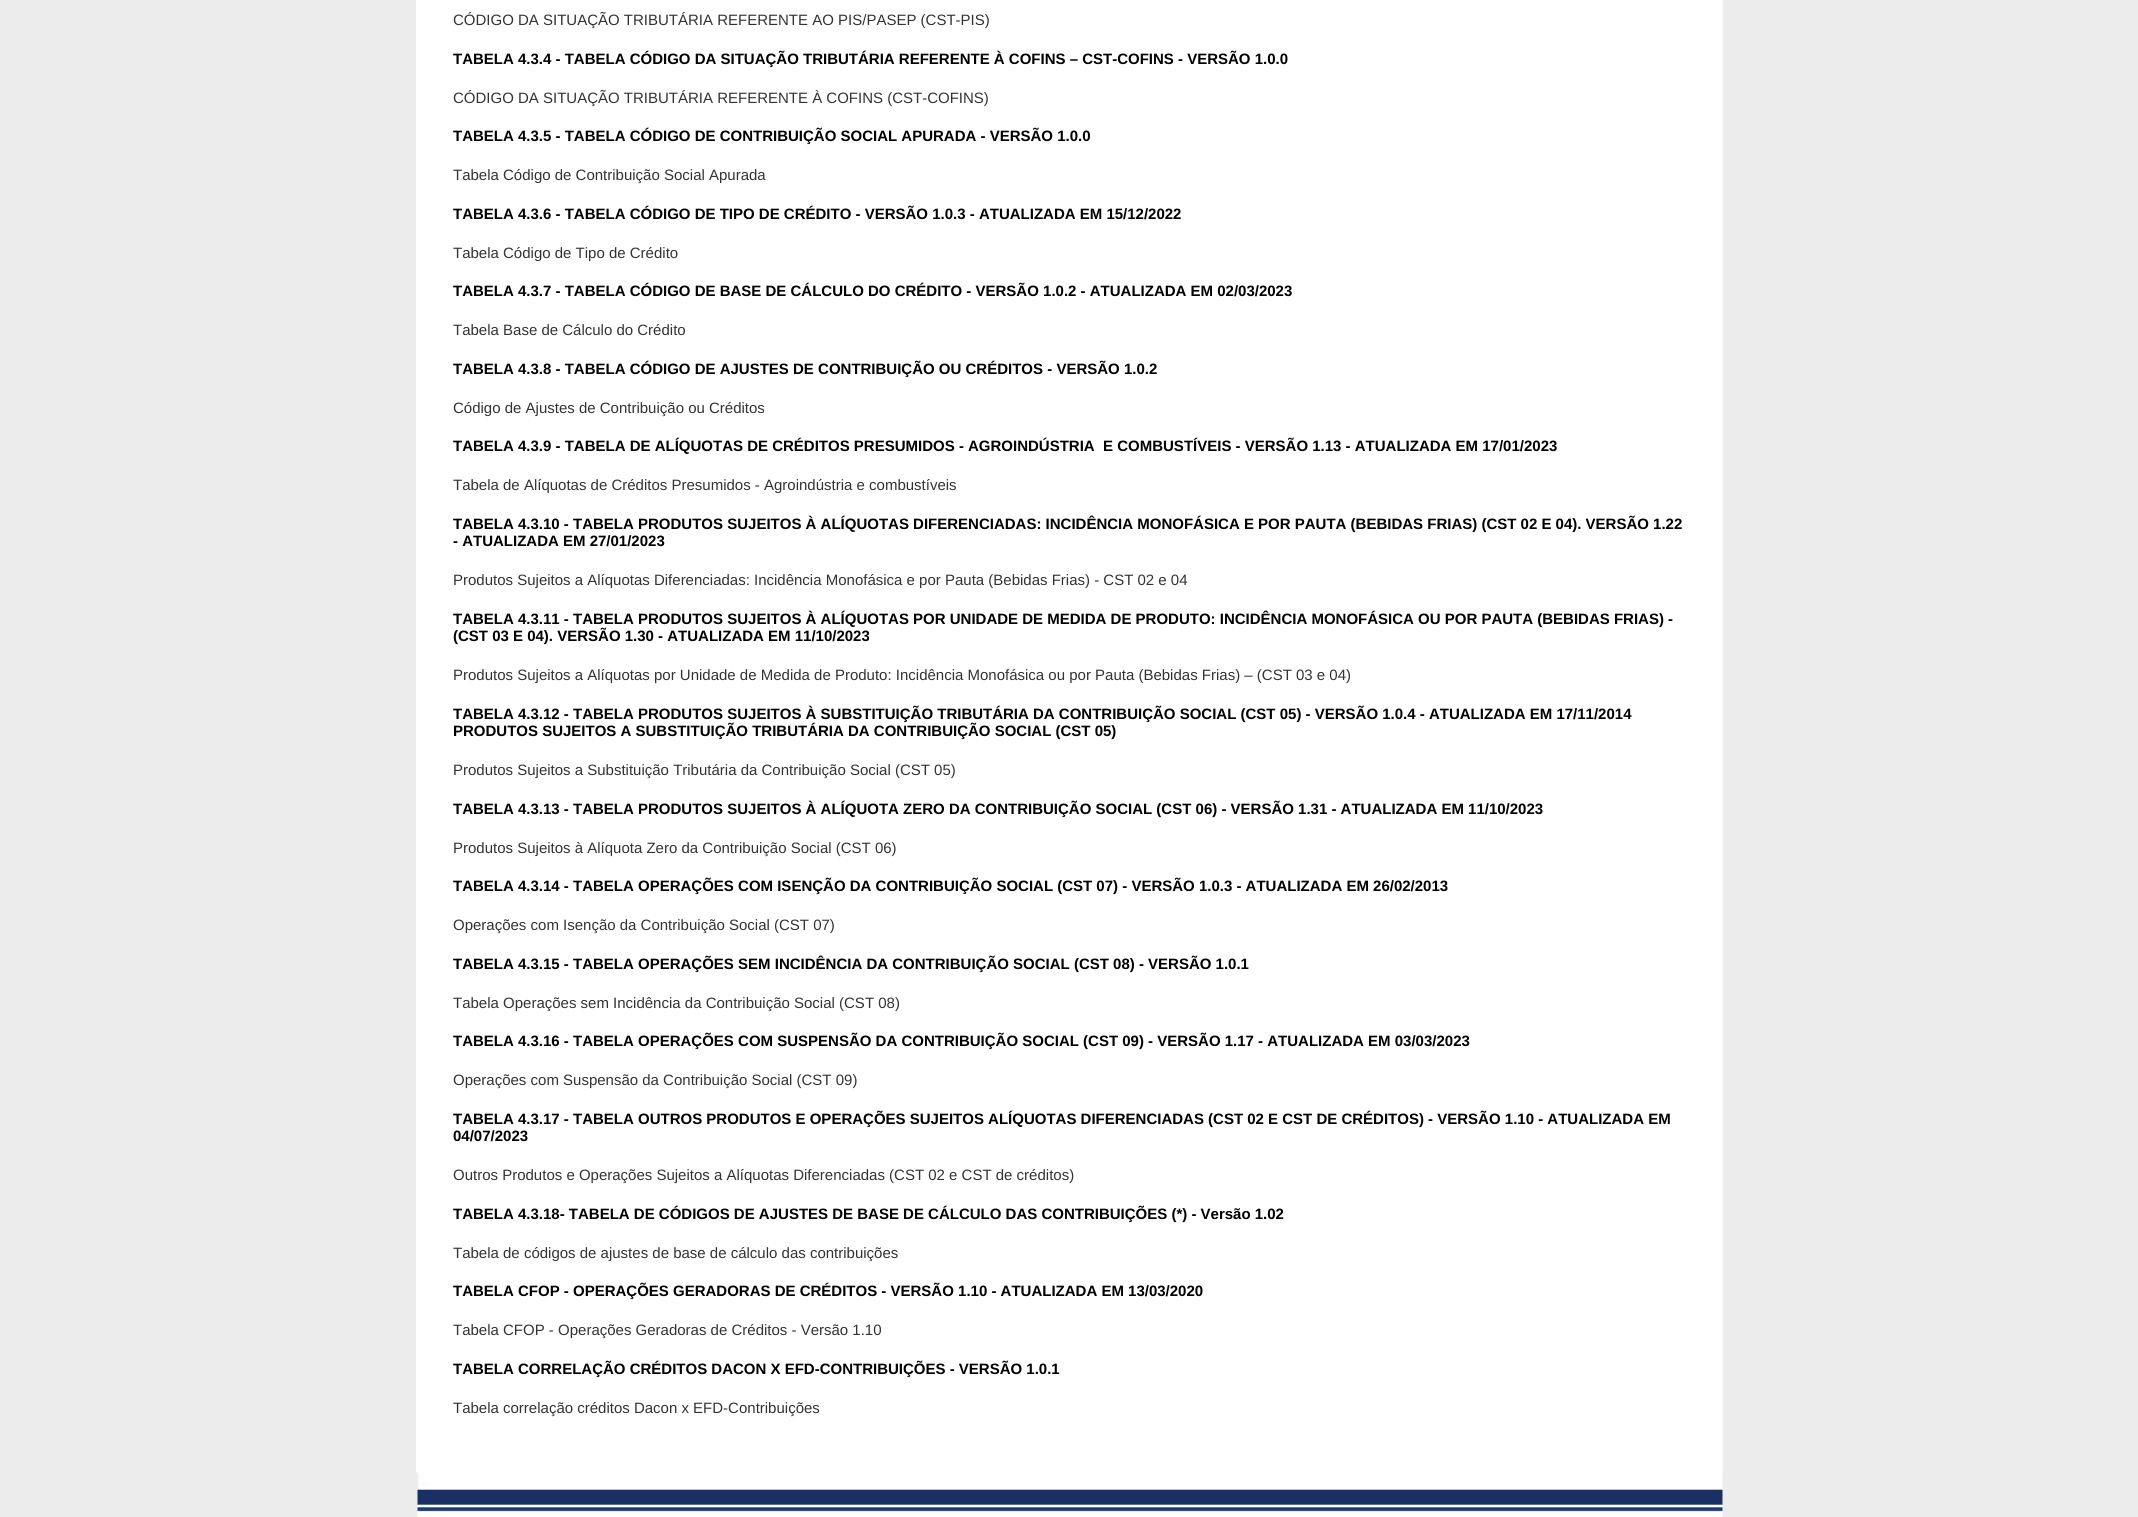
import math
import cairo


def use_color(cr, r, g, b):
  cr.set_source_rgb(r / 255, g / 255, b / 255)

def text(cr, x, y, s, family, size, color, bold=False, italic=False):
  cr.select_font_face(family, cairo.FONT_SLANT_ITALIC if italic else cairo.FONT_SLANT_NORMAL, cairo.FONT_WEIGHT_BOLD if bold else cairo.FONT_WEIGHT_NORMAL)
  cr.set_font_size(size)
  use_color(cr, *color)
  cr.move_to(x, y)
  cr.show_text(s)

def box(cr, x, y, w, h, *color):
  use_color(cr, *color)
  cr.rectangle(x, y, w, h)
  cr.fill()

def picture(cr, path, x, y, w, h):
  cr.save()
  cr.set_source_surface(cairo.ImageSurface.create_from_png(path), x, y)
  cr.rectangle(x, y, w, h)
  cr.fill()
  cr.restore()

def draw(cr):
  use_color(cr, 236, 236, 236)
  cr.paint()
  box(cr, 416, 0, 1307, 1473, 255, 255, 255)
  picture(cr, "img_01.png", 416, 1472, 1307, 45)
  text(cr, 453, 25, "CÓDIGO DA SITUAÇÃO TRIBUTÁRIA REFERENTE AO PIS/PASEP (CST-PIS)", "Liberation Sans", 15, (51, 51, 51))
  text(cr, 453, 64, "TABELA 4.3.4 - TABELA CÓDIGO DA SITUAÇÃO TRIBUTÁRIA REFERENTE À COFINS – CST-COFINS - VERSÃO 1.0.0", "Liberation Sans", 15, (0, 0, 0), bold=True)
  text(cr, 453, 103, "CÓDIGO DA SITUAÇÃO TRIBUTÁRIA REFERENTE À COFINS (CST-COFINS)", "Liberation Sans", 15, (51, 51, 51))
  text(cr, 453, 141, "TABELA 4.3.5 - TABELA CÓDIGO DE CONTRIBUIÇÃO SOCIAL APURADA - VERSÃO 1.0.0", "Liberation Sans", 15, (0, 0, 0), bold=True)
  text(cr, 453, 180, "Tabela Código de Contribuição Social Apurada", "Liberation Sans", 15, (51, 51, 51))
  text(cr, 453, 219, "TABELA 4.3.6 - TABELA CÓDIGO DE TIPO DE CRÉDITO - VERSÃO 1.0.3 - ATUALIZADA EM 15/12/2022", "Liberation Sans", 15, (0, 0, 0), bold=True)
  text(cr, 453, 258, "Tabela Código de Tipo de Crédito", "Liberation Sans", 15, (51, 51, 51))
  text(cr, 453, 296, "TABELA 4.3.7 - TABELA CÓDIGO DE BASE DE CÁLCULO DO CRÉDITO - VERSÃO 1.0.2 - ATUALIZADA EM 02/03/2023", "Liberation Sans", 15, (0, 0, 0), bold=True)
  text(cr, 453, 335, "Tabela Base de Cálculo do Crédito", "Liberation Sans", 15, (51, 51, 51))
  text(cr, 453, 374, "TABELA 4.3.8 - TABELA CÓDIGO DE AJUSTES DE CONTRIBUIÇÃO OU CRÉDITOS - VERSÃO 1.0.2", "Liberation Sans", 15, (0, 0, 0), bold=True)
  text(cr, 453, 413, "Código de Ajustes de Contribuição ou Créditos", "Liberation Sans", 15, (51, 51, 51))
  text(cr, 453, 451, "TABELA 4.3.9 - TABELA DE ALÍQUOTAS DE CRÉDITOS PRESUMIDOS - AGROINDÚSTRIA  E COMBUSTÍVEIS - VERSÃO 1.13 - ATUALIZADA EM 17/01/2023", "Liberation Sans", 15, (0, 0, 0), bold=True)
  text(cr, 453, 490, "Tabela de Alíquotas de Créditos Presumidos - Agroindústria e combustíveis", "Liberation Sans", 15, (51, 51, 51))
  text(cr, 453, 529, "TABELA 4.3.10 - TABELA PRODUTOS SUJEITOS À ALÍQUOTAS DIFERENCIADAS: INCIDÊNCIA MONOFÁSICA E POR PAUTA (BEBIDAS FRIAS) (CST 02 E 04). VERSÃO 1.22", "Liberation Sans", 15, (0, 0, 0), bold=True)
  text(cr, 453, 546, "- ATUALIZADA EM 27/01/2023", "Liberation Sans", 15, (0, 0, 0), bold=True)
  text(cr, 453, 585, "Produtos Sujeitos a Alíquotas Diferenciadas: Incidência Monofásica e por Pauta (Bebidas Frias) - CST 02 e 04", "Liberation Sans", 15, (51, 51, 51))
  text(cr, 453, 624, "TABELA 4.3.11 - TABELA PRODUTOS SUJEITOS À ALÍQUOTAS POR UNIDADE DE MEDIDA DE PRODUTO: INCIDÊNCIA MONOFÁSICA OU POR PAUTA (BEBIDAS FRIAS) -", "Liberation Sans", 15, (0, 0, 0), bold=True)
  text(cr, 453, 641, "(CST 03 E 04). VERSÃO 1.30 - ATUALIZADA EM 11/10/2023", "Liberation Sans", 15, (0, 0, 0), bold=True)
  text(cr, 453, 680, "Produtos Sujeitos a Alíquotas por Unidade de Medida de Produto: Incidência Monofásica ou por Pauta (Bebidas Frias) – (CST 03 e 04)", "Liberation Sans", 15, (51, 51, 51))
  text(cr, 453, 719, "TABELA 4.3.12 - TABELA PRODUTOS SUJEITOS À SUBSTITUIÇÃO TRIBUTÁRIA DA CONTRIBUIÇÃO SOCIAL (CST 05) - VERSÃO 1.0.4 - ATUALIZADA EM 17/11/2014", "Liberation Sans", 15, (0, 0, 0), bold=True)
  text(cr, 453, 736, "PRODUTOS SUJEITOS A SUBSTITUIÇÃO TRIBUTÁRIA DA CONTRIBUIÇÃO SOCIAL (CST 05)", "Liberation Sans", 15, (0, 0, 0), bold=True)
  text(cr, 453, 775, "Produtos Sujeitos a Substituição Tributária da Contribuição Social (CST 05)", "Liberation Sans", 15, (51, 51, 51))
  text(cr, 453, 814, "TABELA 4.3.13 - TABELA PRODUTOS SUJEITOS À ALÍQUOTA ZERO DA CONTRIBUIÇÃO SOCIAL (CST 06) - VERSÃO 1.31 - ATUALIZADA EM 11/10/2023", "Liberation Sans", 15, (0, 0, 0), bold=True)
  text(cr, 453, 853, "Produtos Sujeitos à Alíquota Zero da Contribuição Social (CST 06)", "Liberation Sans", 15, (51, 51, 51))
  text(cr, 453, 891, "TABELA 4.3.14 - TABELA OPERAÇÕES COM ISENÇÃO DA CONTRIBUIÇÃO SOCIAL (CST 07) - VERSÃO 1.0.3 - ATUALIZADA EM 26/02/2013", "Liberation Sans", 15, (0, 0, 0), bold=True)
  text(cr, 453, 930, "Operações com Isenção da Contribuição Social (CST 07)", "Liberation Sans", 15, (51, 51, 51))
  text(cr, 453, 969, "TABELA 4.3.15 - TABELA OPERAÇÕES SEM INCIDÊNCIA DA CONTRIBUIÇÃO SOCIAL (CST 08) - VERSÃO 1.0.1", "Liberation Sans", 15, (0, 0, 0), bold=True)
  text(cr, 453, 1008, "Tabela Operações sem Incidência da Contribuição Social (CST 08)", "Liberation Sans", 15, (51, 51, 51))
  text(cr, 453, 1046, "TABELA 4.3.16 - TABELA OPERAÇÕES COM SUSPENSÃO DA CONTRIBUIÇÃO SOCIAL (CST 09) - VERSÃO 1.17 - ATUALIZADA EM 03/03/2023", "Liberation Sans", 15, (0, 0, 0), bold=True)
  text(cr, 453, 1085, "Operações com Suspensão da Contribuição Social (CST 09)", "Liberation Sans", 15, (51, 51, 51))
  text(cr, 453, 1124, "TABELA 4.3.17 - TABELA OUTROS PRODUTOS E OPERAÇÕES SUJEITOS ALÍQUOTAS DIFERENCIADAS (CST 02 E CST DE CRÉDITOS) - VERSÃO 1.10 - ATUALIZADA EM", "Liberation Sans", 15, (0, 0, 0), bold=True)
  text(cr, 453, 1141, "04/07/2023", "Liberation Sans", 15, (0, 0, 0), bold=True)
  text(cr, 453, 1180, "Outros Produtos e Operações Sujeitos a Alíquotas Diferenciadas (CST 02 e CST de créditos)", "Liberation Sans", 15, (51, 51, 51))
  text(cr, 453, 1219, "TABELA 4.3.18- TABELA DE CÓDIGOS DE AJUSTES DE BASE DE CÁLCULO DAS CONTRIBUIÇÕES (*) - Versão 1.02", "Liberation Sans", 15, (0, 0, 0), bold=True)
  text(cr, 453, 1258, "Tabela de códigos de ajustes de base de cálculo das contribuições", "Liberation Sans", 15, (51, 51, 51))
  text(cr, 453, 1296, "TABELA CFOP - OPERAÇÕES GERADORAS DE CRÉDITOS - VERSÃO 1.10 - ATUALIZADA EM 13/03/2020", "Liberation Sans", 15, (0, 0, 0), bold=True)
  text(cr, 453, 1335, "Tabela CFOP - Operações Geradoras de Créditos - Versão 1.10", "Liberation Sans", 15, (51, 51, 51))
  text(cr, 453, 1374, "TABELA CORRELAÇÃO CRÉDITOS DACON X EFD-CONTRIBUIÇÕES - VERSÃO 1.0.1", "Liberation Sans", 15, (0, 0, 0), bold=True)
  text(cr, 453, 1413, "Tabela correlação créditos Dacon x EFD-Contribuições", "Liberation Sans", 15, (51, 51, 51))


surface = cairo.ImageSurface(cairo.FORMAT_RGB24, 2138, 1517)
cr = cairo.Context(surface)
options = cairo.FontOptions()
options.set_hint_metrics(cairo.HINT_METRICS_OFF)
options.set_hint_style(cairo.HINT_STYLE_NONE)
cr.set_font_options(options)
cr.set_miter_limit(4)
draw(cr)
surface.write_to_png("out.png")
